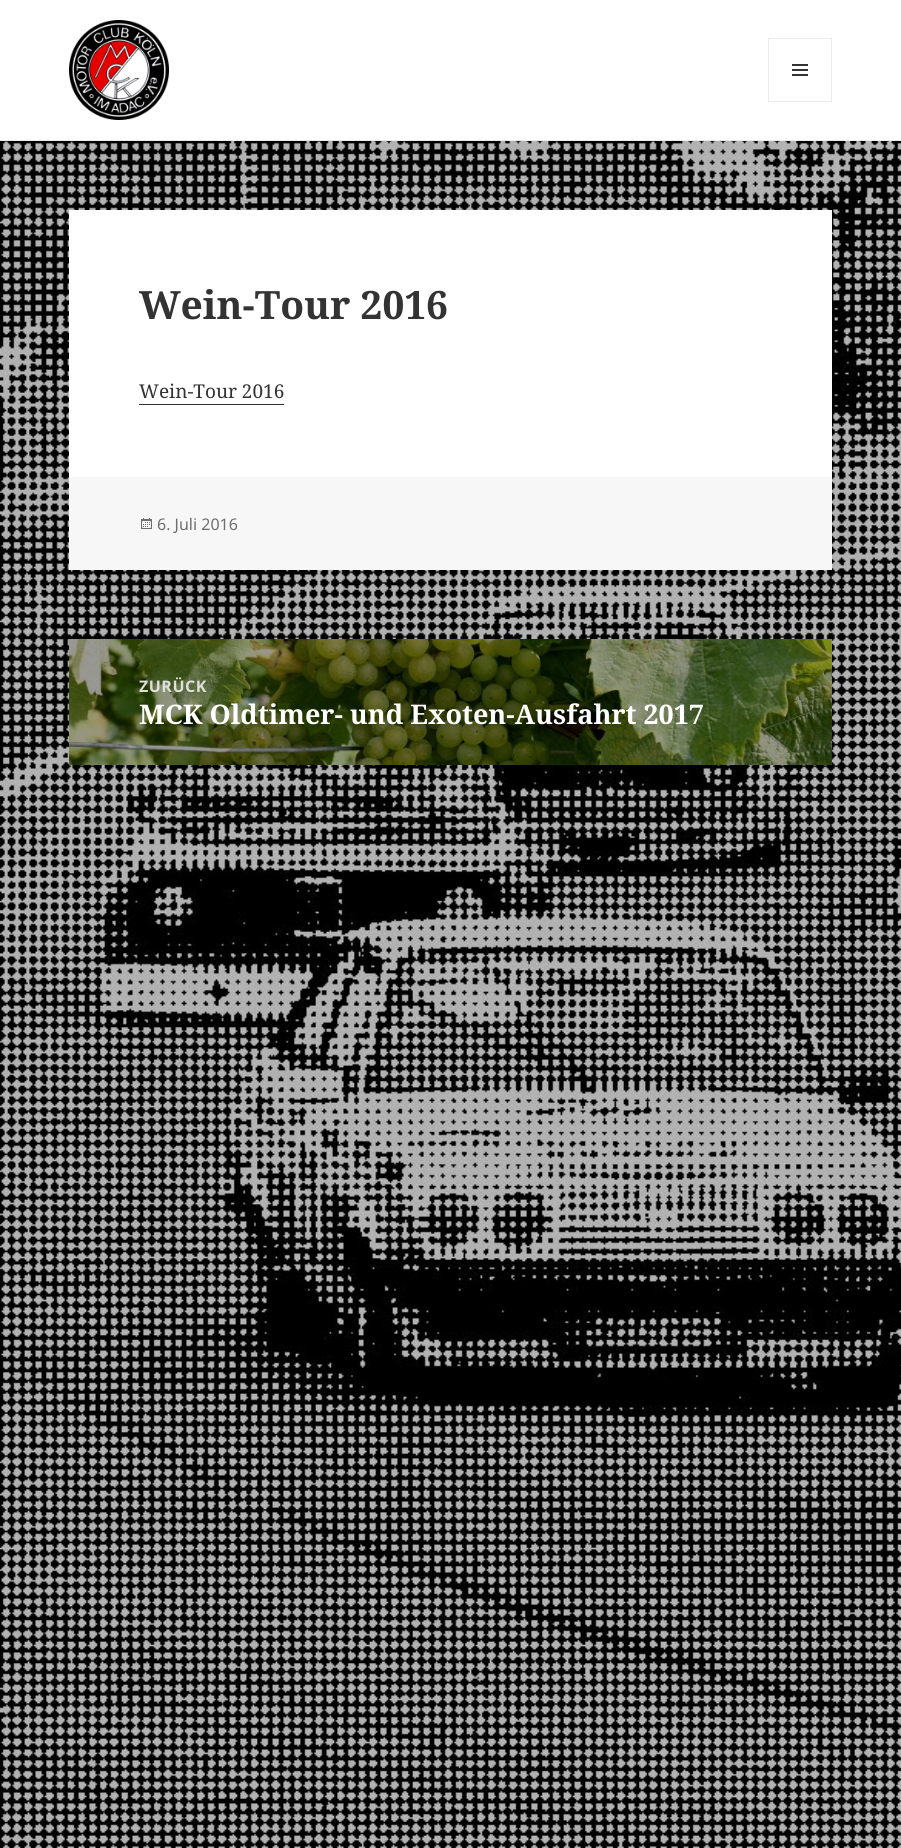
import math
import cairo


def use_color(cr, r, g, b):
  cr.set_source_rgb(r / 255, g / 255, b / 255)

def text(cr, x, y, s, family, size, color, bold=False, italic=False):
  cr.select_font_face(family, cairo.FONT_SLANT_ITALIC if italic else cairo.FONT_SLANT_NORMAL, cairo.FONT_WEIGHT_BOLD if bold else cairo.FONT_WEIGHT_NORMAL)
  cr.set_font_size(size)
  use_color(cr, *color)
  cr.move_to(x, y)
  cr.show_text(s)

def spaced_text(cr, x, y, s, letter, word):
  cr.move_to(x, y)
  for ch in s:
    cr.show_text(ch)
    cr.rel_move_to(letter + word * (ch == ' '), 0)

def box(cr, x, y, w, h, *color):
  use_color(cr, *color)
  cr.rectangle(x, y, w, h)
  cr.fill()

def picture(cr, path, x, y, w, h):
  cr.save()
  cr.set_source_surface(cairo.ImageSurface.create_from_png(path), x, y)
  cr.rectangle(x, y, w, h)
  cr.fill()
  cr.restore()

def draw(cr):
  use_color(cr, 255, 255, 255)
  cr.paint()
  picture(cr, "img_01.png", 0, 141, 901, 1707)
  box(cr, 0, 140, 901, 1, 235, 235, 235)
  picture(cr, "img_02.png", 69, 20, 100, 100)
  cr.rectangle(768.5, 38.5, 63, 63)
  cr.set_line_width(1)
  cr.stroke()
  picture(cr, "img_03.png", 792, 64, 16, 12)
  box(cr, 69, 210, 763, 267, 255, 255, 255)
  box(cr, 139, 404, 145, 1, 51, 51, 51)
  box(cr, 69, 477, 763, 93, 247, 247, 247)
  picture(cr, "img_04.png", 141, 518, 11, 11)
  picture(cr, "img_05.png", 69, 639, 763, 126)
  text(cr, 139, 319, "Wein-Tour 2016", "Noto Serif", 39, (51, 51, 51), bold=True)
  text(cr, 139, 398, "Wein-Tour 2016", "Noto Serif", 19, (51, 51, 51))
  text(cr, 157, 530, "6. Juli 2016", "Noto Sans", 16, (110, 110, 110))
  cr.select_font_face("Noto Sans", cairo.FONT_SLANT_NORMAL, cairo.FONT_WEIGHT_BOLD)
  use_color(cr, 221, 224, 216)
  spaced_text(cr, 139, 692, "ZURÜCK", 0.5, 0)
  text(cr, 139, 724, "MCK Oldtimer- und Exoten-Ausfahrt 2017", "Noto Serif", 27, (255, 255, 255), bold=True)


surface = cairo.ImageSurface(cairo.FORMAT_RGB24, 901, 1848)
cr = cairo.Context(surface)
options = cairo.FontOptions()
options.set_hint_metrics(cairo.HINT_METRICS_OFF)
options.set_hint_style(cairo.HINT_STYLE_NONE)
cr.set_font_options(options)
cr.set_miter_limit(4)
draw(cr)
surface.write_to_png("out.png")
